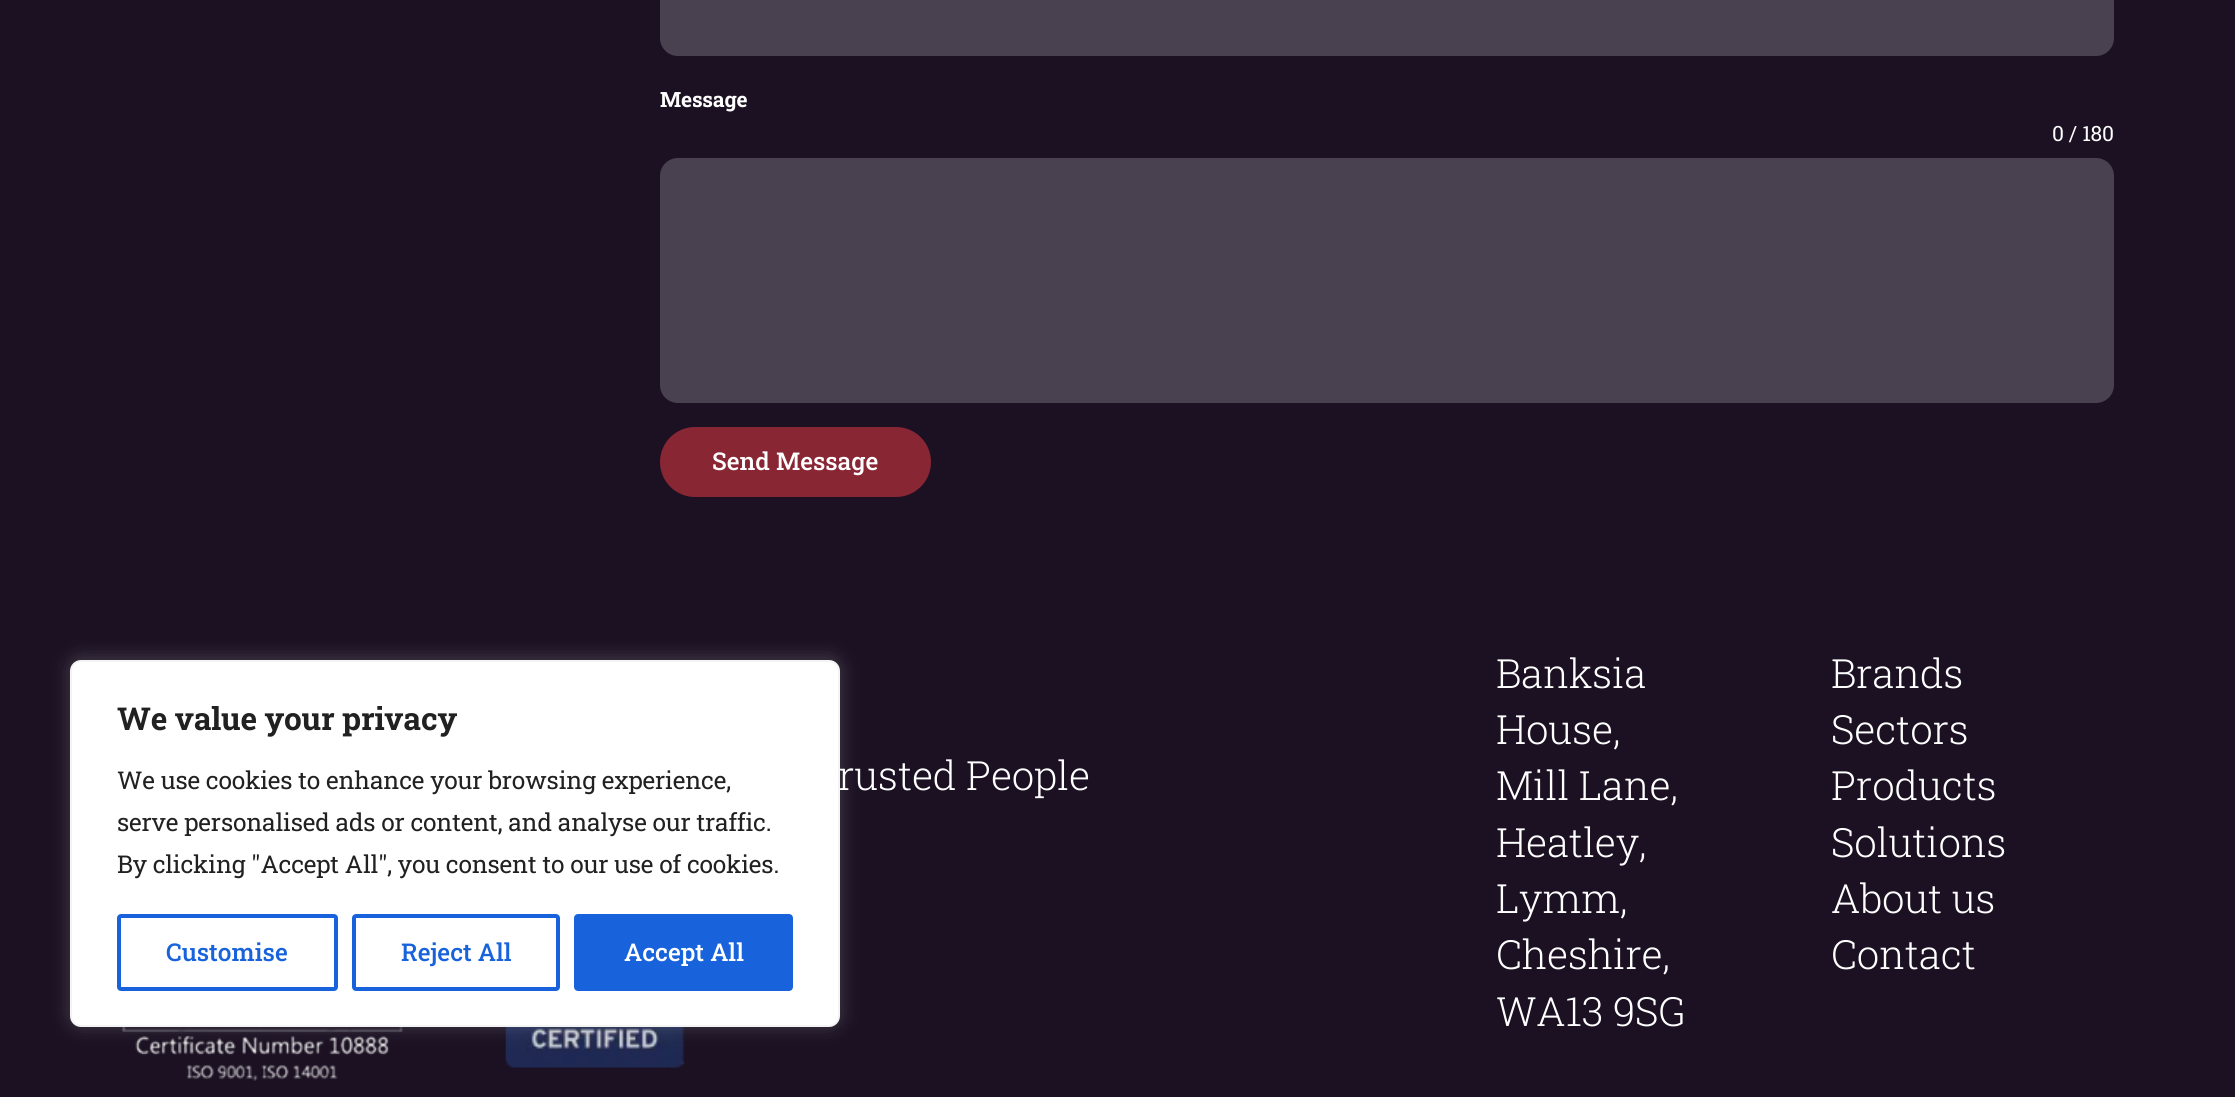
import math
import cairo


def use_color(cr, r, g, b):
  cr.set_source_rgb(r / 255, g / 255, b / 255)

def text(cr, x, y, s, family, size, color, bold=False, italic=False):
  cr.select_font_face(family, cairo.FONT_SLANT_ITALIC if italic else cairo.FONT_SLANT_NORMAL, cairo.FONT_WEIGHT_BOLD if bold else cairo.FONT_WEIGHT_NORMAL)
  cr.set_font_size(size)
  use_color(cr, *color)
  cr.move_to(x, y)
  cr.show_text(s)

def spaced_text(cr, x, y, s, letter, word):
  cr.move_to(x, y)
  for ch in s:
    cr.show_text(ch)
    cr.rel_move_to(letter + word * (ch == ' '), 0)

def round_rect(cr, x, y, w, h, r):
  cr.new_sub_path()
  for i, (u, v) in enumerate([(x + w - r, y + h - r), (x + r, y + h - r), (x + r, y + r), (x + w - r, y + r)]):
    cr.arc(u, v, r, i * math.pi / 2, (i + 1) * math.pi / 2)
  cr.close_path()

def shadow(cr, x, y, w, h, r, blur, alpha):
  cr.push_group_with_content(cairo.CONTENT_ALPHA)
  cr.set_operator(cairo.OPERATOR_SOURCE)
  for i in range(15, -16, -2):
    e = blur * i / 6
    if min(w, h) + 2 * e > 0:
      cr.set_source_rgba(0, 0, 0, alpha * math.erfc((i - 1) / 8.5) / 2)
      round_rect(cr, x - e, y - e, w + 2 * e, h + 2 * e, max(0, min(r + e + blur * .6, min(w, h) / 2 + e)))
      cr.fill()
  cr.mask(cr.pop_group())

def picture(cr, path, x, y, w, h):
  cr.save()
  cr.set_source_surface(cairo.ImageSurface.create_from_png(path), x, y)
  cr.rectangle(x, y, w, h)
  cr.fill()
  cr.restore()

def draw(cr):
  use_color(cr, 27, 17, 35)
  cr.paint()
  picture(cr, "img_01.png", 122, 1027, 281, 54)
  picture(cr, "img_02.png", 505, 1027, 180, 41)
  use_color(cr, 172, 171, 171)
  shadow(cr, 70, 658, 770, 368, 11, 9, 0.3)
  use_color(cr, 255, 255, 255)
  round_rect(cr, 71, 661, 768, 365, 10)
  cr.fill_preserve()
  use_color(cr, 244, 244, 244)
  cr.stroke()
  round_rect(cr, 119, 916, 217, 73, 2)
  use_color(cr, 24, 99, 220)
  cr.set_line_width(4)
  cr.stroke()
  round_rect(cr, 354, 916, 204, 73, 2)
  cr.stroke()
  round_rect(cr, 576, 916, 215, 73, 2)
  cr.fill_preserve()
  cr.stroke()
  use_color(cr, 73, 65, 79)
  round_rect(cr, 660, -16, 1454, 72, 18)
  cr.fill()
  round_rect(cr, 660, 158, 1454, 245, 18)
  cr.fill()
  use_color(cr, 137, 38, 52)
  round_rect(cr, 660, 427, 271, 70, 35)
  cr.fill()
  cr.select_font_face("Roboto Slab", cairo.FONT_SLANT_NORMAL, cairo.FONT_WEIGHT_BOLD)
  cr.set_font_size(31.5)
  use_color(cr, 33, 33, 33)
  spaced_text(cr, 117, 730, "We value your privacy", -0.18, 0)
  cr.select_font_face("Roboto Slab")
  cr.set_font_size(24.5)
  spaced_text(cr, 117, 789, "We use cookies to enhance your browsing experience,", -0.18, 0)
  spaced_text(cr, 117, 831, "serve personalised ads or content, and analyse our traffic.", -0.18, 0)
  spaced_text(cr, 117, 873, "By clicking \"Accept All\", you consent to our use of cookies.", -0.18, 0)
  text(cr, 166, 961, "Customise", "Roboto Slab Medium", 24.5, (24, 99, 220))
  text(cr, 401, 961, "Reject All", "Roboto Slab Medium", 24.5, (24, 99, 220))
  text(cr, 624, 961, "Accept All", "Roboto Slab Medium", 24.5, (255, 255, 255))
  cr.select_font_face("Roboto Slab", cairo.FONT_SLANT_NORMAL, cairo.FONT_WEIGHT_BOLD)
  cr.set_font_size(21)
  spaced_text(cr, 660, 107, "Message", -0.18, 0)
  cr.select_font_face("Roboto Slab")
  spaced_text(cr, 2052, 141, "0 / 180", -0.18, 0)
  text(cr, 712, 470, "Send Message", "Roboto Slab Medium", 24.5, (255, 255, 255))
  cr.select_font_face("Roboto Slab Light")
  cr.set_font_size(40.25)
  spaced_text(cr, 838, 790, "rusted People", -0.18, 0)
  spaced_text(cr, 1496, 688, "Banksia", -0.18, 0)
  spaced_text(cr, 1496, 744, "House,", -0.18, 0)
  spaced_text(cr, 1496, 800, "Mill Lane,", -0.18, 0)
  spaced_text(cr, 1496, 857, "Heatley,", -0.18, 0)
  spaced_text(cr, 1496, 913, "Lymm,", -0.18, 0)
  spaced_text(cr, 1496, 969, "Cheshire,", -0.18, 0)
  spaced_text(cr, 1496, 1026, "WA13 9SG", -0.18, 0)
  spaced_text(cr, 1831, 688, "Brands", -0.18, 0)
  spaced_text(cr, 1831, 744, "Sectors", -0.18, 0)
  spaced_text(cr, 1831, 800, "Products", -0.18, 0)
  spaced_text(cr, 1831, 857, "Solutions", -0.18, 0)
  spaced_text(cr, 1831, 913, "About us", -0.18, 0)
  spaced_text(cr, 1831, 969, "Contact", -0.18, 0)


surface = cairo.ImageSurface(cairo.FORMAT_RGB24, 2235, 1097)
cr = cairo.Context(surface)
options = cairo.FontOptions()
options.set_hint_metrics(cairo.HINT_METRICS_OFF)
options.set_hint_style(cairo.HINT_STYLE_NONE)
cr.set_font_options(options)
cr.set_miter_limit(4)
draw(cr)
surface.write_to_png("out.png")
